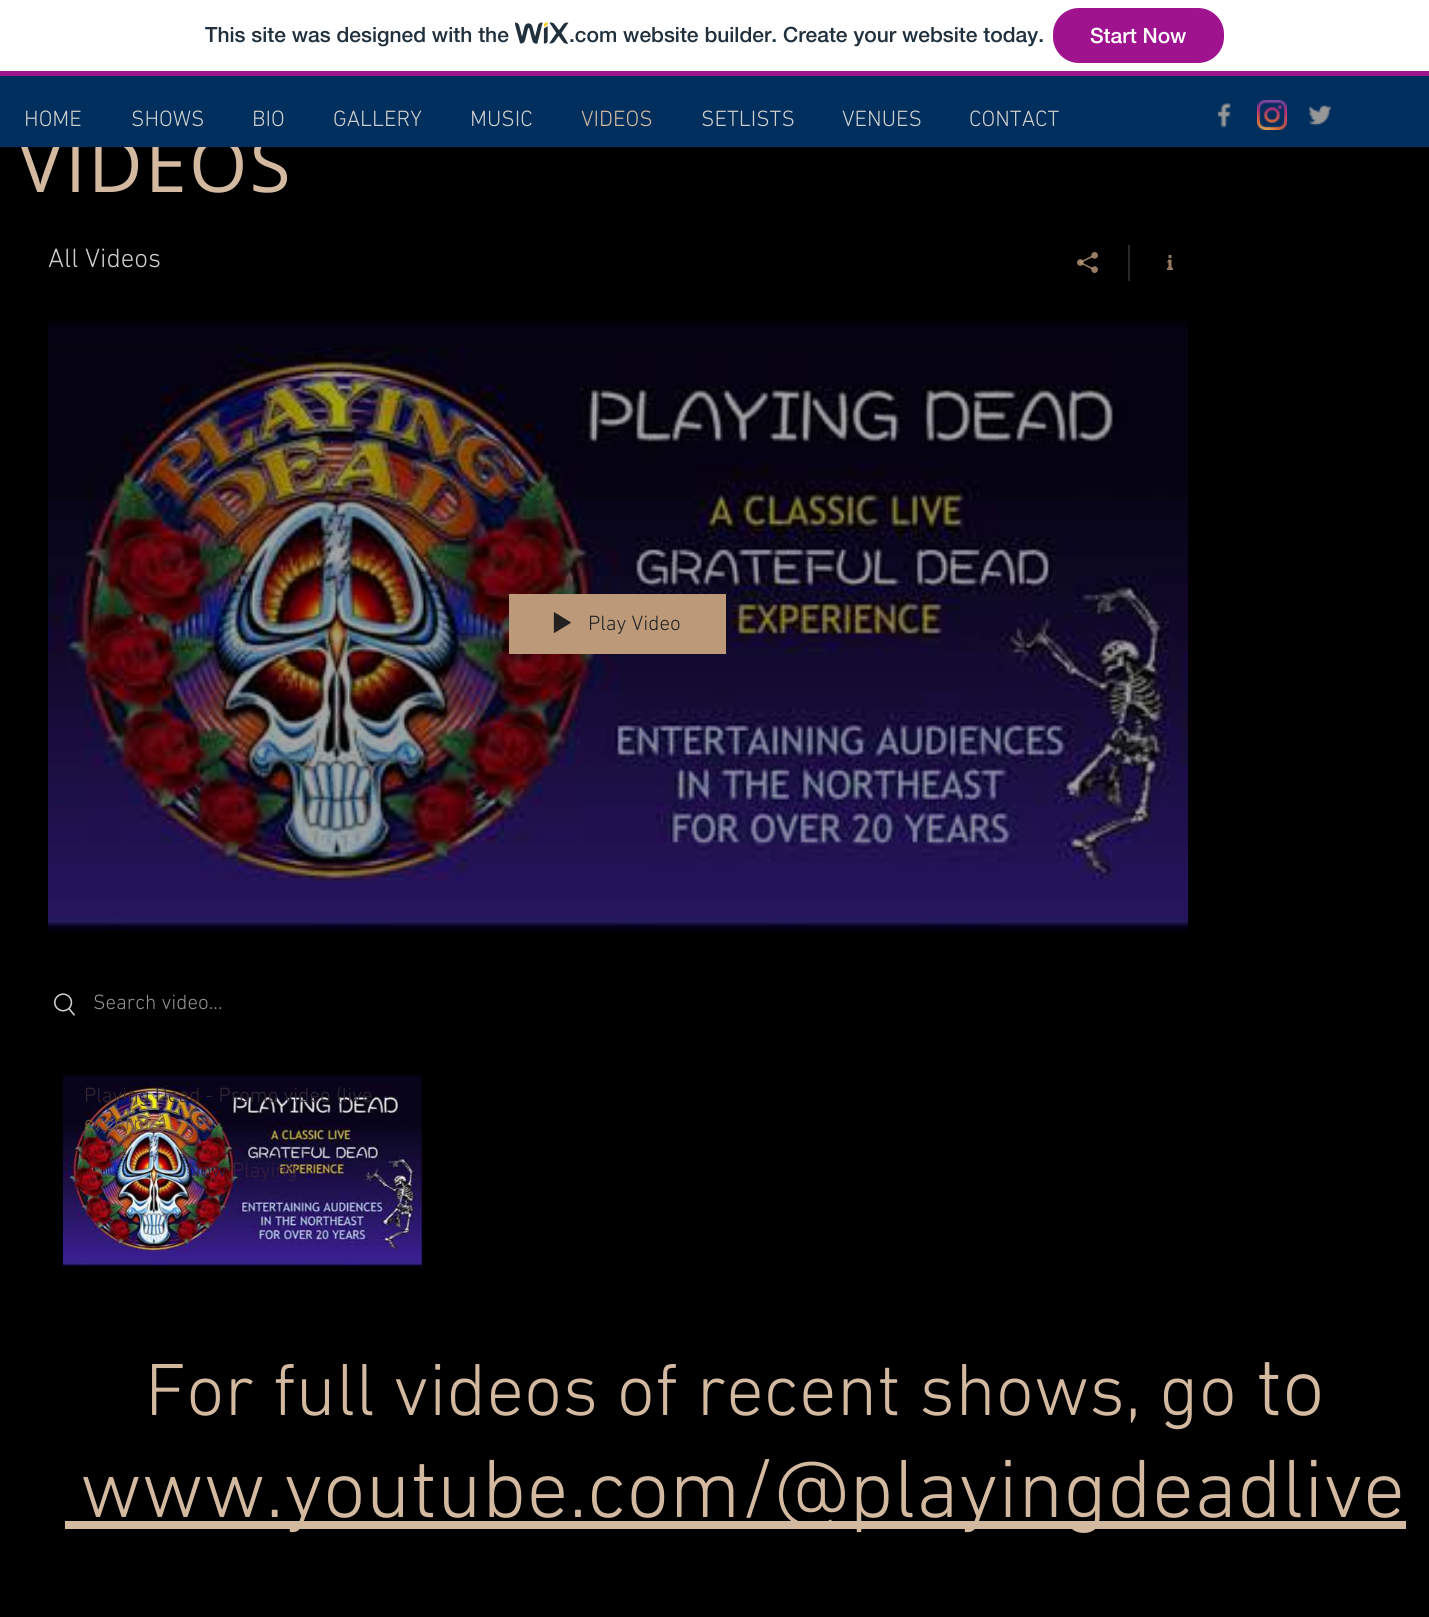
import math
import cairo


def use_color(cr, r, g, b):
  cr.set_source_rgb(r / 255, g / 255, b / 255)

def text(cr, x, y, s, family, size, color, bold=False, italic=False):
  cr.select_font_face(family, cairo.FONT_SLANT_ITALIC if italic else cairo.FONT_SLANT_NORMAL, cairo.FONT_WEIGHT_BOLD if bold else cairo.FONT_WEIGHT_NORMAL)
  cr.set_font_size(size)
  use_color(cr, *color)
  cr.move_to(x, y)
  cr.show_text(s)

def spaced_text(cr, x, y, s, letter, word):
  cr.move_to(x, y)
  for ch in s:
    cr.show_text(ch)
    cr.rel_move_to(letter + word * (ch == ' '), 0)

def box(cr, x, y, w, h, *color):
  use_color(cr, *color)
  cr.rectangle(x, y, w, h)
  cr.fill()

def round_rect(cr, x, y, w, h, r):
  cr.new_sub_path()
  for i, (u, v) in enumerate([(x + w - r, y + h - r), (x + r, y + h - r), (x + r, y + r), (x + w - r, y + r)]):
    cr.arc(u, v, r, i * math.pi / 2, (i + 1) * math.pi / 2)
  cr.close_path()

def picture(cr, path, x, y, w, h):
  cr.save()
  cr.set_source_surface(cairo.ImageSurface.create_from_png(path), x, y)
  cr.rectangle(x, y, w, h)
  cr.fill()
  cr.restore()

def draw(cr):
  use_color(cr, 0, 0, 0)
  cr.paint()
  box(cr, 0, 0, 1429, 71, 255, 255, 255)
  box(cr, 0, 71, 1429, 5, 160, 19, 142)
  picture(cr, "img_01.png", 515, 22, 54, 22)
  round_rect(cr, 1054, 9, 169, 53, 25)
  cr.fill_preserve()
  cr.stroke()
  box(cr, 1128, 245, 2, 36, 42, 41, 41)
  picture(cr, "img_05.png", 1077, 252, 21, 21)
  picture(cr, "img_06.png", 1167, 255, 6, 15)
  picture(cr, "img_07.png", 48, 319, 1140, 614)
  picture(cr, "img_08.png", 48, 352, 1140, 575)
  box(cr, 509, 594, 217, 60, 188, 153, 121)
  picture(cr, "img_09.png", 553, 612, 18, 21)
  picture(cr, "img_10.png", 54, 993, 22, 23)
  picture(cr, "img_11.png", 421, 1072, 1, 199)
  picture(cr, "img_12.png", 63, 1072, 359, 199)
  box(cr, 65, 1521, 1341, 8, 212, 185, 161)
  text(cr, 205, 42, "This site was designed with the", "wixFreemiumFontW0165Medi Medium", 21, (32, 48, 60))
  text(cr, 569, 42, ".com website builder. Create your website today.", "wixFreemiumFontW0165Medi Medium", 21, (32, 48, 60))
  text(cr, 1090, 43, "Start Now", "wixFreemiumFontW0165Medi Medium", 21, (255, 255, 255))
  cr.select_font_face("Open Sans")
  cr.set_font_size(75)
  use_color(cr, 212, 185, 161)
  spaced_text(cr, 18, 192, "VIDEOS", 2.25, 0)
  box(cr, 0, 76, 1429, 71, 0, 46, 93)
  picture(cr, "img_04.png", 1308, 104, 24, 22)
  picture(cr, "img_03.png", 1257, 100, 30, 30)
  picture(cr, "img_02.png", 1217, 102, 14, 26)
  text(cr, 969, 126, "CONTACT", "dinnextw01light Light", 22.5, (208, 207, 205))
  text(cr, 842, 126, "VENUES", "dinnextw01light Light", 22.5, (208, 207, 205))
  text(cr, 701, 126, "SETLISTS", "dinnextw01light Light", 22.5, (208, 207, 205))
  text(cr, 581, 126, "VIDEOS", "dinnextw01light Light", 22.5, (212, 185, 161))
  text(cr, 470, 126, "MUSIC", "dinnextw01light Light", 22.5, (208, 207, 205))
  text(cr, 333, 126, "GALLERY", "dinnextw01light Light", 22.5, (208, 207, 205))
  text(cr, 252, 126, "BIO", "dinnextw01light Light", 22.5, (208, 207, 205))
  text(cr, 131, 126, "SHOWS", "dinnextw01light Light", 22.5, (208, 207, 205))
  text(cr, 24, 126, "HOME", "dinnextw01light Light", 22.5, (208, 207, 205))
  text(cr, 48, 267, "All Videos", "dinnextw01light Light", 27, (208, 207, 205))
  text(cr, 588, 630, "Play Video", "dinnextw01light Light", 21, (34, 33, 32))
  text(cr, 93, 1009, "Search video...", "dinnextw01light Light", 21, (146, 145, 144))
  text(cr, 84, 1102, "Playing Dead - Promo video (live", "dinnextw01light Light", 21, (50, 41, 52))
  text(cr, 84, 1130, "excerpts)", "dinnextw01light Light", 21, (124, 92, 59))
  text(cr, 187, 1177, "Now Playing", "dinnextw01light Light", 21, (54, 29, 64))
  text(cr, 145, 1415, "For full videos of recent shows, go", "dinnextw01light Light", 75, (212, 185, 161))
  text(cr, 1256, 1415, "to", "dinnextw01light Light", 84, (212, 185, 161))
  text(cr, 80, 1517, "www.youtube.com/@playingdeadlive", "dinnextw01light Light", 84, (212, 185, 161))


surface = cairo.ImageSurface(cairo.FORMAT_RGB24, 1429, 1617)
cr = cairo.Context(surface)
options = cairo.FontOptions()
options.set_hint_metrics(cairo.HINT_METRICS_OFF)
options.set_hint_style(cairo.HINT_STYLE_NONE)
cr.set_font_options(options)
cr.set_miter_limit(4)
draw(cr)
surface.write_to_png("out.png")
